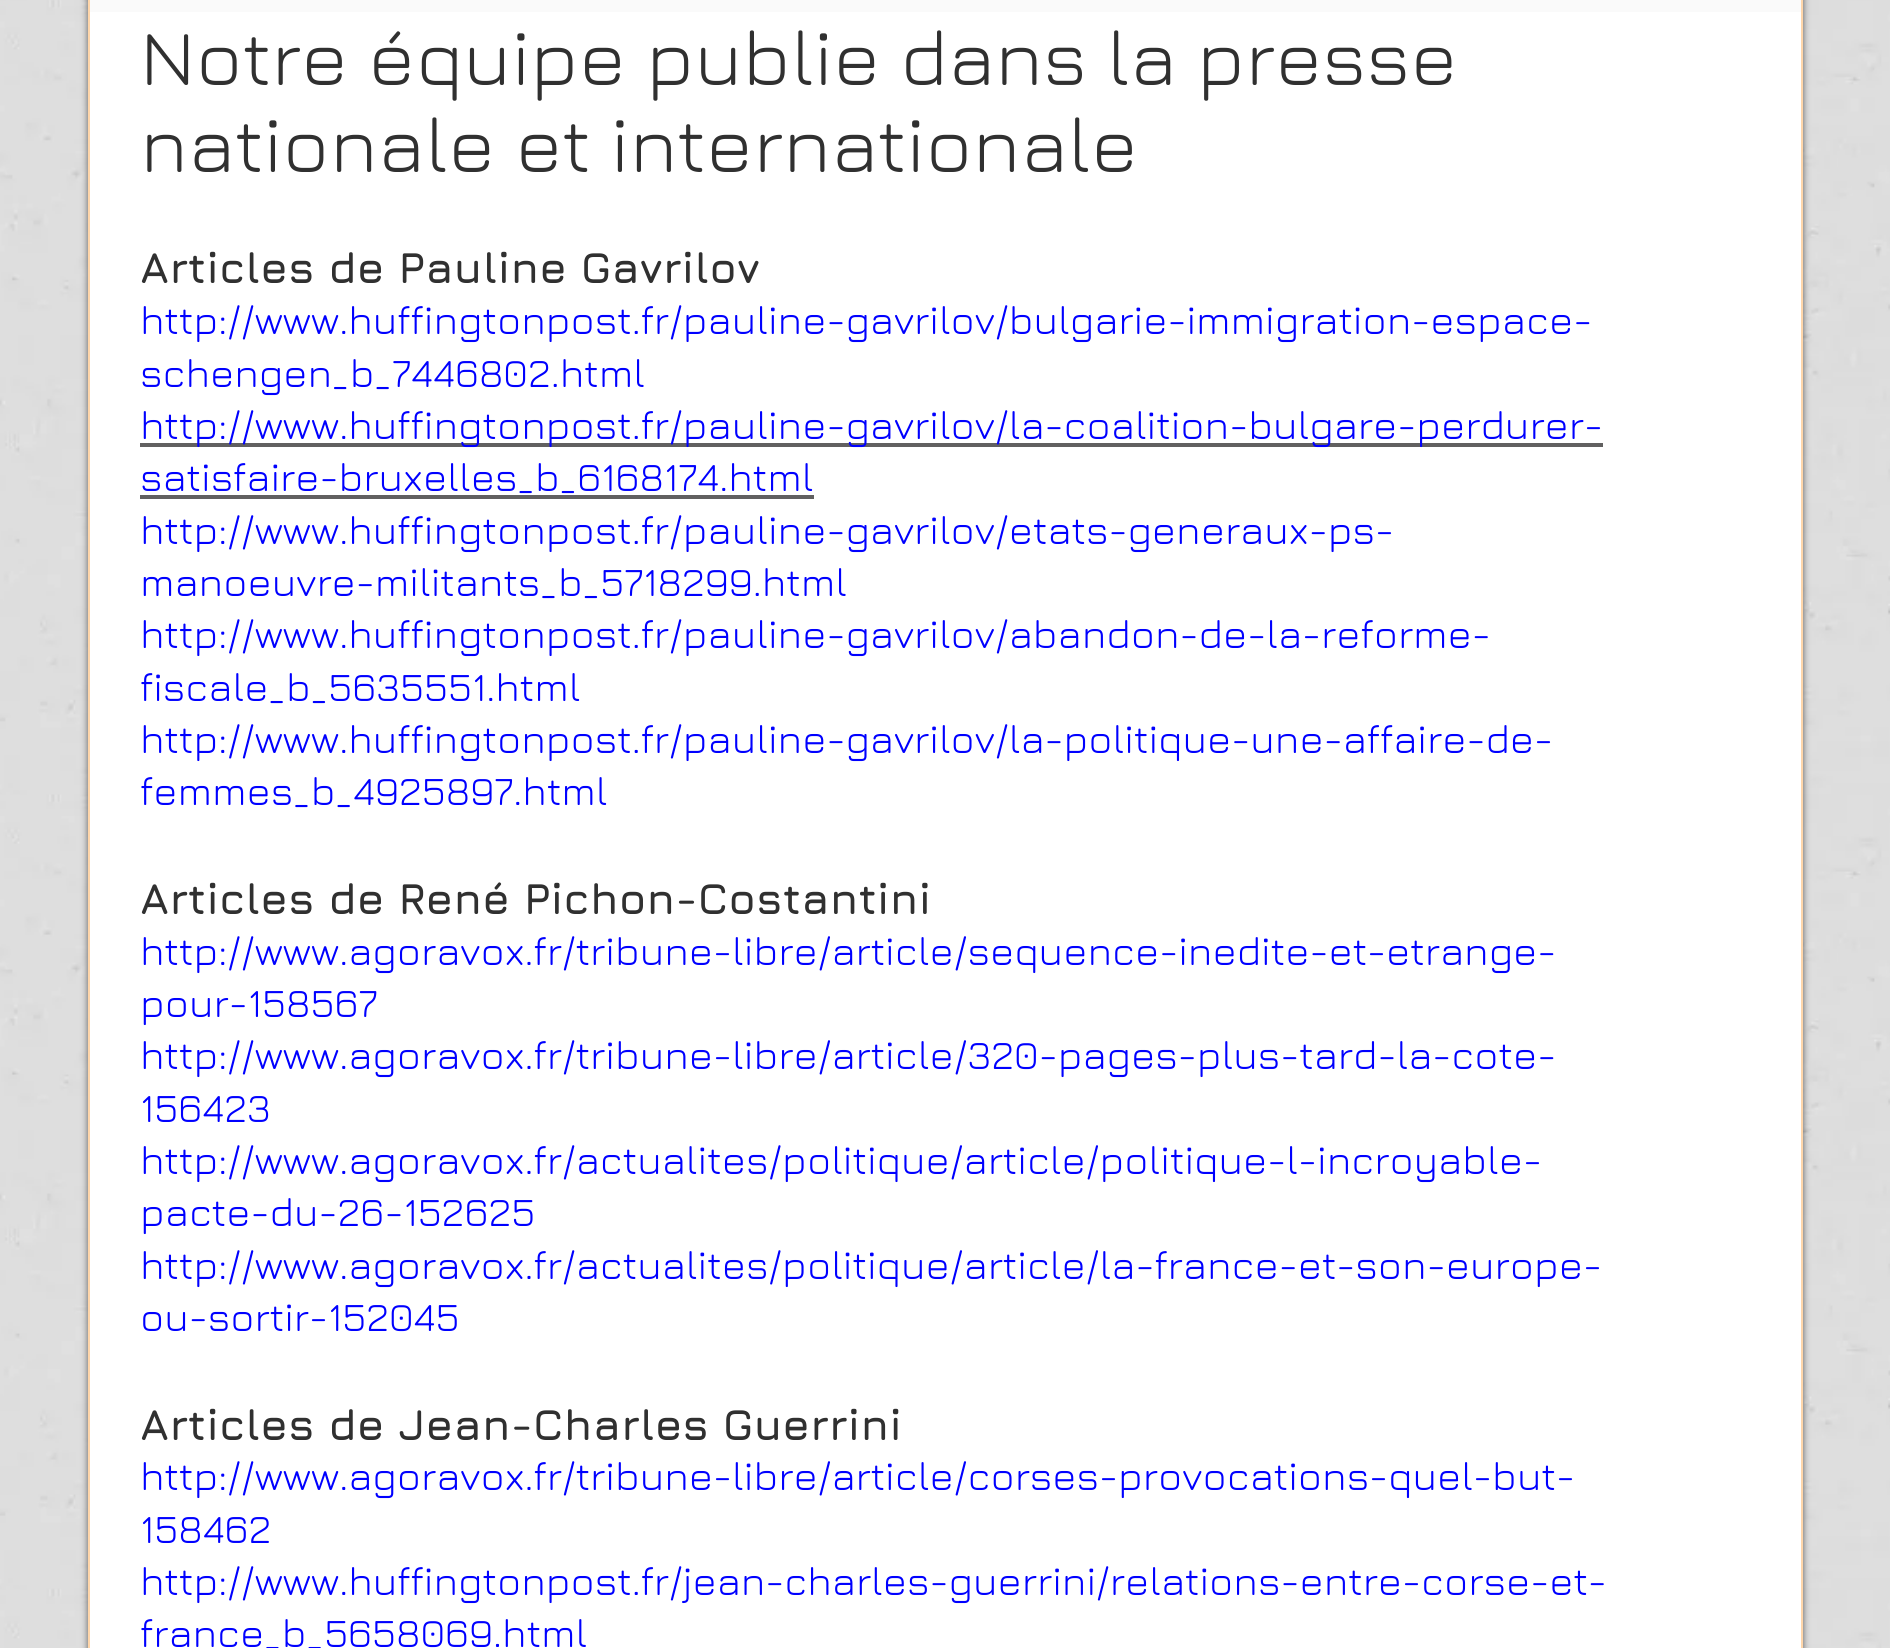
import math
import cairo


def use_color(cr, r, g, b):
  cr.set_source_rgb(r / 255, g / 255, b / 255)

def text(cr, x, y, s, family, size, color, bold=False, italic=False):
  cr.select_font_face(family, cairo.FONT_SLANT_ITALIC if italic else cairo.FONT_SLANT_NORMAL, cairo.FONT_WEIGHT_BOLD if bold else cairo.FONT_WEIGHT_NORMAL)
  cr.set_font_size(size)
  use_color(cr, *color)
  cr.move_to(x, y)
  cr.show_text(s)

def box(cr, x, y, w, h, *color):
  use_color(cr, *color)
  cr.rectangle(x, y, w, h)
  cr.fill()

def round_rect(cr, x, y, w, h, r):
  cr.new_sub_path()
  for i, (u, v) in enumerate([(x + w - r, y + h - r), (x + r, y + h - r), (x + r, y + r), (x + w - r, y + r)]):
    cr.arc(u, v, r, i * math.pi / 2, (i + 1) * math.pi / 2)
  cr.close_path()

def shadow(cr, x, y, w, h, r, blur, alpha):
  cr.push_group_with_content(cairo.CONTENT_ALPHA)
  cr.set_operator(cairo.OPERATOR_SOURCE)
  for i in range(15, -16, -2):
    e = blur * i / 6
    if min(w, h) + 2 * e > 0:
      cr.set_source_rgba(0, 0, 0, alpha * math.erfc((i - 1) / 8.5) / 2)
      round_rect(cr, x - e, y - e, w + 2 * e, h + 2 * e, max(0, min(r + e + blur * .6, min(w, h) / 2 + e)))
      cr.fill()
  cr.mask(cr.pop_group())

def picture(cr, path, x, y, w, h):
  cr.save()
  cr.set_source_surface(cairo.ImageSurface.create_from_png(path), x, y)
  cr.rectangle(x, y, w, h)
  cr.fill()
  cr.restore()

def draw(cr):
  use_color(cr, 255, 255, 255)
  cr.paint()
  picture(cr, "img_01.png", 0, 0, 1890, 1648)
  use_color(cr, 0, 0, 0)
  shadow(cr, 88, -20, 1715, 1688, 9, 3.5, 0.6)
  box(cr, 90, 12, 1711, 1636, 255, 255, 255)
  box(cr, 90, 0, 1711, 12, 250, 250, 250)
  cr.rectangle(89, -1, 1713, 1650)
  use_color(cr, 255, 214, 170)
  cr.stroke()
  box(cr, 140, 443, 1463, 4, 97, 96, 96)
  box(cr, 140, 495, 674, 4, 97, 96, 96)
  text(cr, 140, 85, "Notre équipe publie dans la presse", "Jura", 78.75, (48, 48, 48))
  text(cr, 140, 172, "nationale et internationale", "Jura", 78.75, (48, 48, 48))
  text(cr, 140, 283, "Articles de Pauline Gavrilov", "Jura", 43.75, (48, 48, 48), bold=True)
  text(cr, 140, 334, "http://www.huffingtonpost.fr/pauline-gavrilov/bulgarie-immigration-espace-", "Jura", 40.25, (0, 0, 255))
  text(cr, 140, 387, "schengen_b_7446802.html", "Jura", 40.25, (0, 0, 255))
  text(cr, 140, 439, "http://www.huffingtonpost.fr/pauline-gavrilov/la-coalition-bulgare-perdurer-", "Jura", 40.25, (0, 0, 255))
  text(cr, 140, 491, "satisfaire-bruxelles_b_6168174.html", "Jura", 40.25, (0, 0, 255))
  text(cr, 140, 544, "http://www.huffingtonpost.fr/pauline-gavrilov/etats-generaux-ps-", "Jura", 40.25, (0, 0, 255))
  text(cr, 140, 596, "manoeuvre-militants_b_5718299.html", "Jura", 40.25, (0, 0, 255))
  text(cr, 140, 648, "http://www.huffingtonpost.fr/pauline-gavrilov/abandon-de-la-reforme-", "Jura", 40.25, (0, 0, 255))
  text(cr, 140, 701, "fiscale_b_5635551.html", "Jura", 40.25, (0, 0, 255))
  text(cr, 140, 753, "http://www.huffingtonpost.fr/pauline-gavrilov/la-politique-une-affaire-de-", "Jura", 40.25, (0, 0, 255))
  text(cr, 140, 805, "femmes_b_4925897.html", "Jura", 40.25, (0, 0, 255))
  text(cr, 140, 914, "Articles de René Pichon-Costantini", "Jura", 43.75, (48, 48, 48), bold=True)
  text(cr, 140, 965, "http://www.agoravox.fr/tribune-libre/article/sequence-inedite-et-etrange-", "Jura", 40.25, (0, 0, 255))
  text(cr, 140, 1017, "pour-158567", "Jura", 40.25, (0, 0, 255))
  text(cr, 140, 1069, "http://www.agoravox.fr/tribune-libre/article/320-pages-plus-tard-la-cote-", "Jura", 40.25, (0, 0, 255))
  text(cr, 140, 1122, "156423", "Jura", 40.25, (0, 0, 255))
  text(cr, 140, 1174, "http://www.agoravox.fr/actualites/politique/article/politique-l-incroyable-", "Jura", 40.25, (0, 0, 255))
  text(cr, 140, 1226, "pacte-du-26-152625", "Jura", 40.25, (0, 0, 255))
  text(cr, 140, 1279, "http://www.agoravox.fr/actualites/politique/article/la-france-et-son-europe-", "Jura", 40.25, (0, 0, 255))
  text(cr, 140, 1331, "ou-sortir-152045", "Jura", 40.25, (0, 0, 255))
  text(cr, 140, 1440, "Articles de Jean-Charles Guerrini", "Jura", 43.75, (48, 48, 48), bold=True)
  text(cr, 140, 1490, "http://www.agoravox.fr/tribune-libre/article/corses-provocations-quel-but-", "Jura", 40.25, (0, 0, 255))
  text(cr, 140, 1543, "158462", "Jura", 40.25, (0, 0, 255))
  text(cr, 140, 1595, "http://www.huffingtonpost.fr/jean-charles-guerrini/relations-entre-corse-et-", "Jura", 40.25, (0, 0, 255))
  text(cr, 140, 1647, "france_b_5658069.html", "Jura", 40.25, (0, 0, 255))


surface = cairo.ImageSurface(cairo.FORMAT_RGB24, 1890, 1648)
cr = cairo.Context(surface)
options = cairo.FontOptions()
options.set_hint_metrics(cairo.HINT_METRICS_OFF)
options.set_hint_style(cairo.HINT_STYLE_NONE)
cr.set_font_options(options)
cr.set_miter_limit(4)
draw(cr)
surface.write_to_png("out.png")
